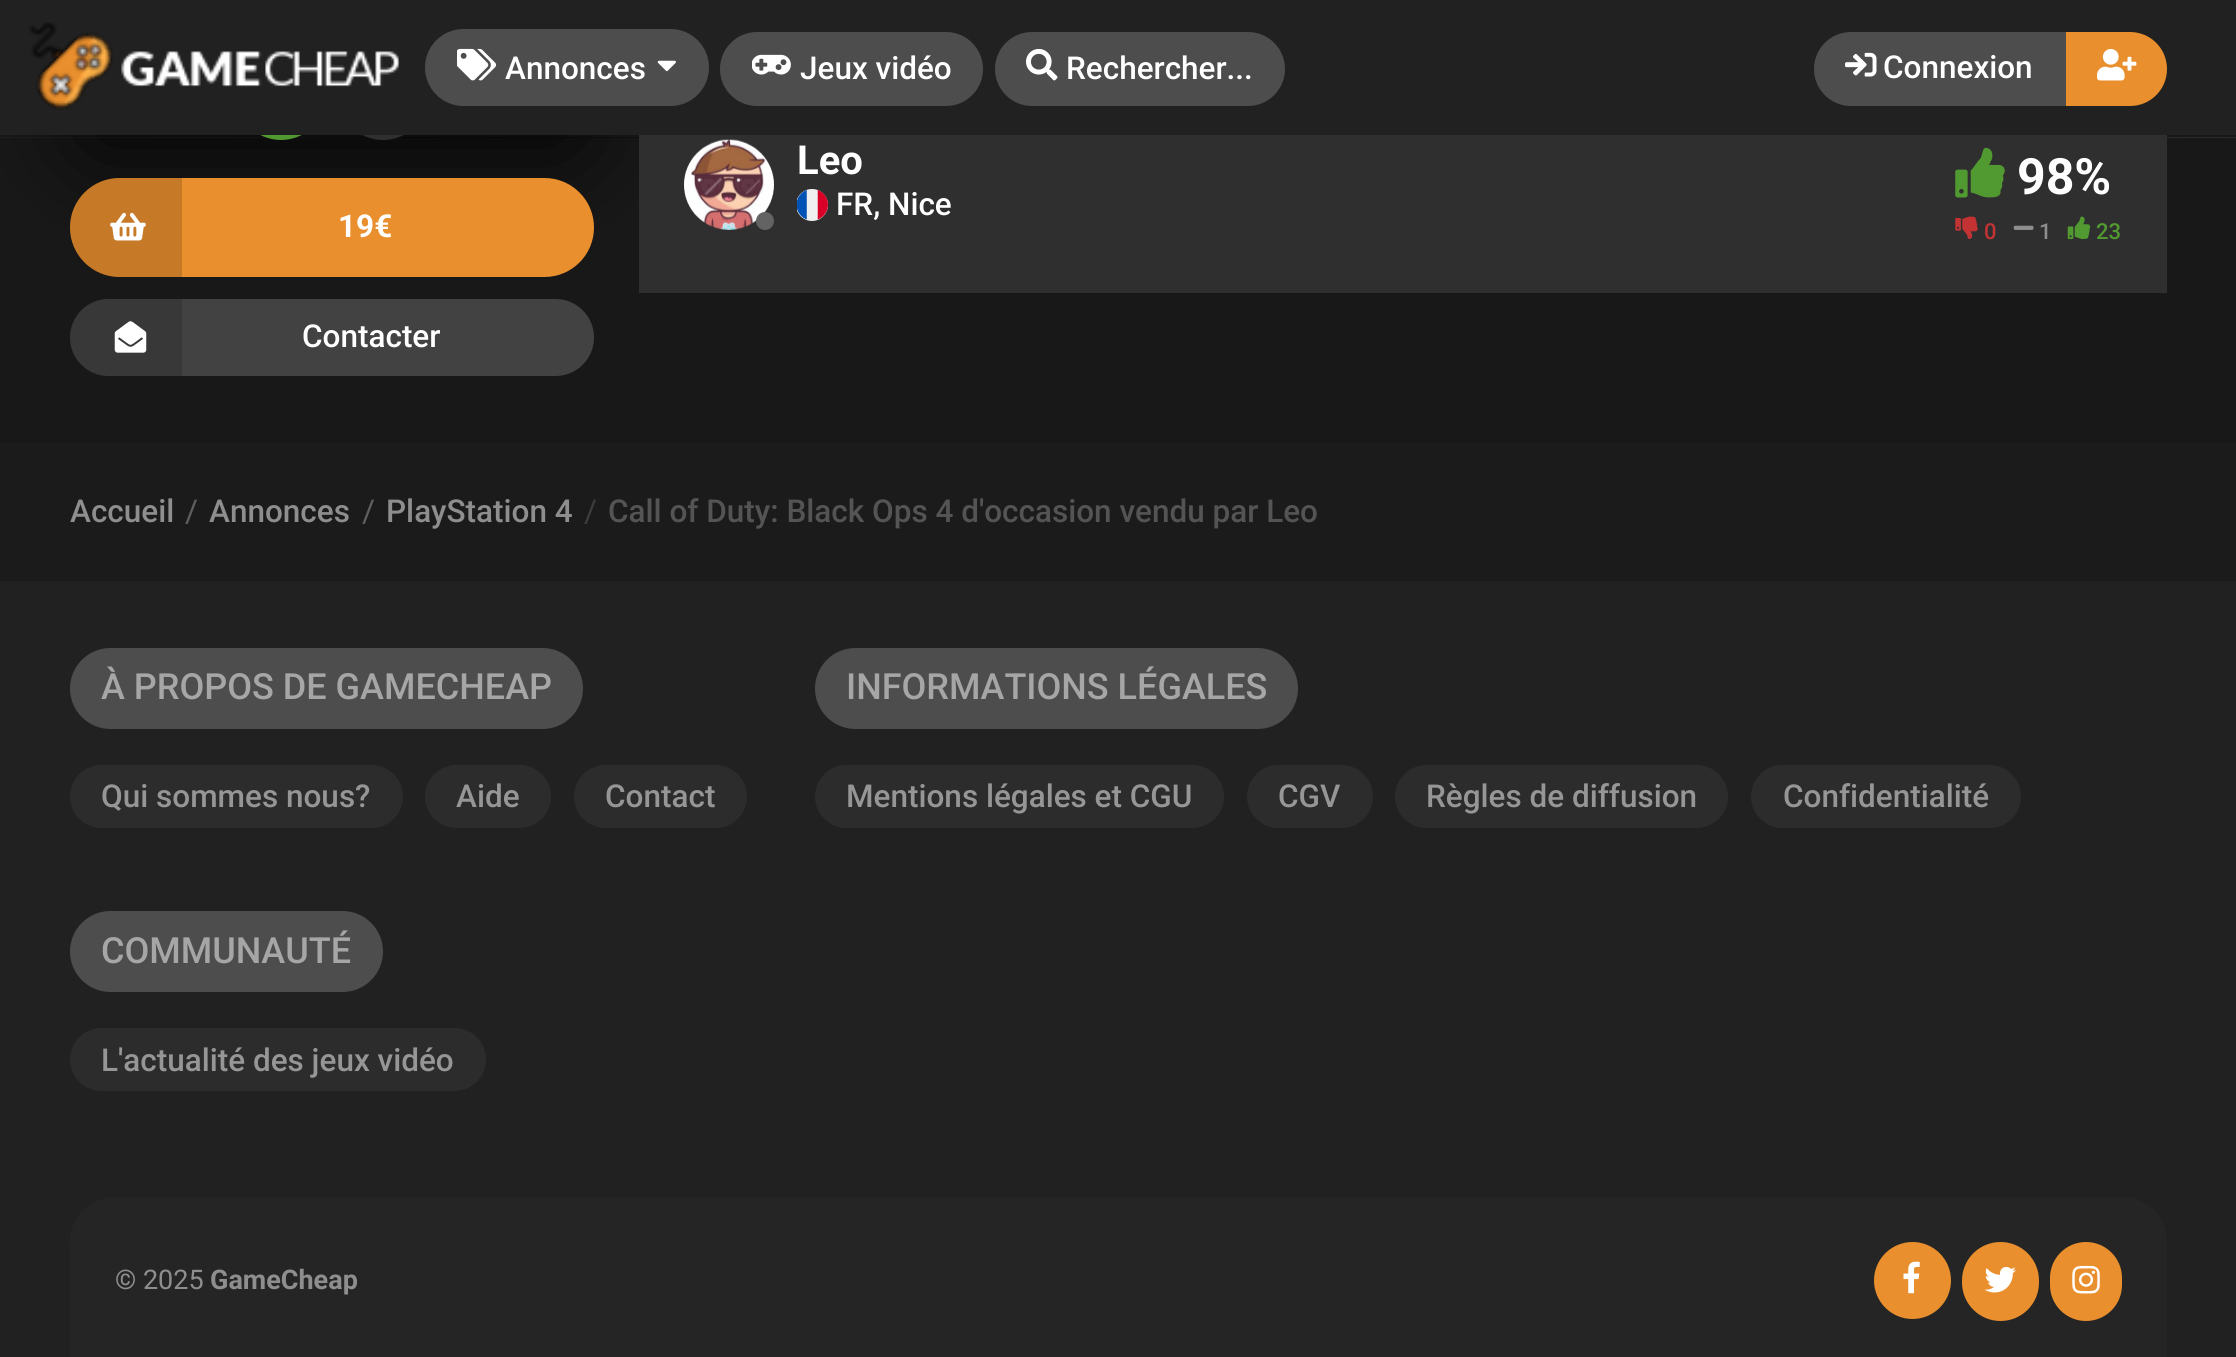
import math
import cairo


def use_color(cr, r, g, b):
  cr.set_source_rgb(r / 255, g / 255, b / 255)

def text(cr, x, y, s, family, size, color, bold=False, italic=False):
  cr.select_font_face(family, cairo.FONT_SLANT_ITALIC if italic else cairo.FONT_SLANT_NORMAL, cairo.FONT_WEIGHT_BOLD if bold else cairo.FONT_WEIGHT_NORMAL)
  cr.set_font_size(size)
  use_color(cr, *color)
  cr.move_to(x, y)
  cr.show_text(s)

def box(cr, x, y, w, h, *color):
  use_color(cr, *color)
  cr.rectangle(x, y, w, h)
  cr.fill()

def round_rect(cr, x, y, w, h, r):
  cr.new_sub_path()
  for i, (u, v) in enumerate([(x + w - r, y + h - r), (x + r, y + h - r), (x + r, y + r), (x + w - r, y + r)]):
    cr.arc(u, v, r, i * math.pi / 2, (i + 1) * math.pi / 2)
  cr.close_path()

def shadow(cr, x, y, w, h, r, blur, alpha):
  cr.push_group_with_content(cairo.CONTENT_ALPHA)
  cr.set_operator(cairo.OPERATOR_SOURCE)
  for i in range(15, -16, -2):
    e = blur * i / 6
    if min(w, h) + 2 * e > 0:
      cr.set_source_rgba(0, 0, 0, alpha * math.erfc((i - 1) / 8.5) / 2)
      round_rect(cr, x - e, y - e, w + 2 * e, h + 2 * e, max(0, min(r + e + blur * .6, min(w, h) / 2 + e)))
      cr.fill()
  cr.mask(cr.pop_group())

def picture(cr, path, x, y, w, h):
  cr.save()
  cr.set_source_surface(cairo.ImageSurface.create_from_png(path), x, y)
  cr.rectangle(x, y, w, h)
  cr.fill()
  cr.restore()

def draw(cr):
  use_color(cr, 25, 24, 24)
  cr.paint()
  picture(cr, "img_08.png", 0, 135, 2236, 3)
  use_color(cr, 0, 0, 0)
  shadow(cr, 92, -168, 480, 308, 0, 56, 1)
  use_color(cr, 81, 154, 49)
  cr.arc(281, 95, 45, 0, 2 * math.pi)
  cr.fill()
  use_color(cr, 48, 47, 47)
  cr.arc(383, 95, 45, 0, 2 * math.pi)
  cr.fill()
  box(cr, 0, 0, 2236, 135, 34, 33, 33)
  picture(cr, "img_01.png", 29, 22, 371, 88)
  use_color(cr, 78, 77, 77)
  round_rect(cr, 425, 29, 284, 77, 38.5)
  cr.fill()
  picture(cr, "img_02.png", 457, 48, 40, 33)
  picture(cr, "img_03.png", 657, 60, 19, 12)
  round_rect(cr, 720, 32, 263, 74, 37)
  cr.fill()
  picture(cr, "img_04.png", 752, 54, 39, 21)
  round_rect(cr, 995, 32, 290, 74, 37)
  cr.fill()
  picture(cr, "img_05.png", 1026, 48, 32, 33)
  cr.new_path()
  cr.move_to(1851, 32)
  cr.line_to(2066, 32)
  cr.line_to(2066, 106)
  cr.line_to(1851, 106)
  cr.curve_to(1830.5, 106, 1814, 89.5, 1814, 69)
  cr.curve_to(1814, 48.5, 1830.5, 32, 1851, 32)
  cr.close_path()
  cr.fill()
  picture(cr, "img_06.png", 1845, 52, 32, 25)
  use_color(cr, 233, 143, 46)
  cr.new_path()
  cr.move_to(2066, 32)
  cr.line_to(2130, 32)
  cr.curve_to(2150.5, 32, 2167, 48.5, 2167, 69)
  cr.curve_to(2167, 89.5, 2150.5, 106, 2130, 106)
  cr.line_to(2066, 106)
  cr.close_path()
  cr.fill()
  picture(cr, "img_07.png", 2097, 48, 40, 33)
  box(cr, 639, 135, 1528, 158, 48, 47, 47)
  picture(cr, "img_09.png", 684, 139, 90, 91)
  use_color(cr, 99, 99, 99)
  cr.arc(765, 221, 9, 0, 2 * math.pi)
  cr.fill()
  picture(cr, "img_10.png", 797, 189, 31, 32)
  picture(cr, "img_11.png", 1955, 147, 50, 51)
  picture(cr, "img_12.png", 1955, 216, 23, 23)
  picture(cr, "img_13.png", 2013, 225, 21, 5)
  picture(cr, "img_14.png", 2067, 216, 24, 24)
  use_color(cr, 233, 143, 46)
  round_rect(cr, 70, 178, 524, 99, 49.5)
  cr.fill()
  cr.set_source_rgba(0, 0, 0, 0.15)
  cr.new_path()
  cr.move_to(119.5, 178)
  cr.line_to(182, 178)
  cr.line_to(182, 277)
  cr.line_to(119.5, 277)
  cr.curve_to(92, 277, 70, 255, 70, 227.5)
  cr.curve_to(70, 200, 92, 178, 119.5, 178)
  cr.close_path()
  cr.fill()
  picture(cr, "img_15.png", 110, 212, 36, 29)
  use_color(cr, 66, 66, 66)
  round_rect(cr, 70, 299, 524, 77, 38.5)
  cr.fill()
  cr.set_source_rgba(0, 0, 0, 0.15)
  cr.new_path()
  cr.move_to(108.5, 299)
  cr.line_to(182, 299)
  cr.line_to(182, 376)
  cr.line_to(108.5, 376)
  cr.curve_to(87, 376, 70, 359, 70, 337.5)
  cr.curve_to(70, 316, 87, 299, 108.5, 299)
  cr.close_path()
  cr.fill()
  picture(cr, "img_16.png", 114, 321, 33, 32)
  box(cr, 0, 443, 2236, 138, 27, 27, 27)
  box(cr, 0, 581, 2236, 776, 33, 33, 33)
  use_color(cr, 78, 77, 77)
  round_rect(cr, 70, 648, 513, 81, 40.5)
  cr.fill()
  use_color(cr, 44, 44, 44)
  round_rect(cr, 70, 765, 333, 63, 31.5)
  cr.fill()
  round_rect(cr, 425, 765, 126, 63, 31.5)
  cr.fill()
  round_rect(cr, 574, 765, 173, 63, 31.5)
  cr.fill()
  use_color(cr, 78, 77, 77)
  round_rect(cr, 815, 648, 483, 81, 40.5)
  cr.fill()
  use_color(cr, 44, 44, 44)
  round_rect(cr, 815, 765, 409, 63, 31.5)
  cr.fill()
  round_rect(cr, 1247, 765, 126, 63, 31.5)
  cr.fill()
  round_rect(cr, 1395, 765, 333, 63, 31.5)
  cr.fill()
  round_rect(cr, 1751, 765, 270, 63, 31.5)
  cr.fill()
  use_color(cr, 78, 77, 77)
  round_rect(cr, 70, 911, 313, 81, 40.5)
  cr.fill()
  use_color(cr, 44, 44, 44)
  round_rect(cr, 70, 1028, 416, 63, 31.5)
  cr.fill()
  use_color(cr, 37, 37, 37)
  cr.new_path()
  cr.move_to(115, 1197)
  cr.line_to(2122, 1197)
  cr.curve_to(2147, 1197, 2167, 1217, 2167, 1242)
  cr.line_to(2167, 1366)
  cr.line_to(70, 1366)
  cr.line_to(70, 1242)
  cr.curve_to(70, 1217, 90, 1197, 115, 1197)
  cr.close_path()
  cr.fill()
  use_color(cr, 233, 143, 46)
  cr.arc(1912.5, 1280.5, 38.5, 0, 2 * math.pi)
  cr.fill()
  picture(cr, "img_17.png", 1903, 1261, 17, 33)
  round_rect(cr, 1962, 1242, 77, 79, 38.5)
  cr.fill()
  picture(cr, "img_18.png", 1984, 1266, 32, 27)
  round_rect(cr, 2050, 1242, 72, 79, 36)
  cr.fill()
  picture(cr, "img_19.png", 2072, 1265, 28, 29)
  text(cr, 505, 79, "Annonces", "Roboto Medium", 31.5, (255, 255, 255))
  text(cr, 800, 79, "Jeux vidéo", "Roboto Medium", 31.5, (255, 255, 255))
  text(cr, 1066, 79, "Rechercher...", "Roboto Medium", 31.5, (255, 255, 255))
  text(cr, 1883, 78, "Connexion", "Roboto Medium", 31.5, (255, 255, 255))
  text(cr, 797, 174, "Leo", "Roboto", 40, (255, 255, 255), bold=True)
  text(cr, 836, 215, "FR, Nice", "Roboto Medium", 31.5, (255, 255, 255))
  text(cr, 2017, 194, "98%", "Roboto", 50, (255, 255, 255), bold=True)
  text(cr, 1984, 239, "0", "Roboto Medium", 22, (195, 51, 51))
  text(cr, 2039, 239, "1", "Roboto Medium", 22, (142, 142, 142))
  text(cr, 2096, 239, "23", "Roboto Medium", 22, (81, 154, 49))
  text(cr, 338, 237, "19€", "Roboto", 31.5, (255, 255, 255), bold=True)
  text(cr, 302, 347, "Contacter", "Roboto Medium", 31.5, (255, 255, 255))
  text(cr, 70, 522, "Accueil", "Roboto Medium", 31.5, (142, 142, 142))
  text(cr, 185, 522, "/", "Roboto", 31.5, (95, 95, 95))
  text(cr, 209, 522, "Annonces", "Roboto Medium", 31.5, (142, 142, 142))
  text(cr, 362, 522, "/", "Roboto", 31.5, (95, 95, 95))
  text(cr, 386, 522, "PlayStation 4", "Roboto Medium", 31.5, (142, 142, 142))
  text(cr, 584, 522, "/", "Roboto", 31.5, (61, 61, 61))
  text(cr, 608, 522, "Call of Duty: Black Ops 4 d'occasion vendu par Leo", "Roboto Medium", 31.5, (84, 84, 84))
  text(cr, 101, 699, "À PROPOS DE GAMECHEAP", "Roboto Medium", 36, (167, 166, 166))
  text(cr, 101, 807, "Qui sommes nous?", "Roboto Medium", 31.5, (150, 150, 150))
  text(cr, 456, 807, "Aide", "Roboto Medium", 31.5, (150, 150, 150))
  text(cr, 605, 807, "Contact", "Roboto Medium", 31.5, (150, 150, 150))
  text(cr, 846, 699, "INFORMATIONS LÉGALES", "Roboto Medium", 36, (167, 166, 166))
  text(cr, 846, 807, "Mentions légales et CGU", "Roboto Medium", 31.5, (150, 150, 150))
  text(cr, 1278, 807, "CGV", "Roboto Medium", 31.5, (150, 150, 150))
  text(cr, 1426, 807, "Règles de diffusion", "Roboto Medium", 31.5, (150, 150, 150))
  text(cr, 1783, 807, "Confidentialité", "Roboto Medium", 31.5, (150, 150, 150))
  text(cr, 101, 963, "COMMUNAUTÉ", "Roboto Medium", 36, (167, 166, 166))
  text(cr, 101, 1071, "L'actualité des jeux vidéo", "Roboto Medium", 31.5, (150, 150, 150))
  text(cr, 115, 1289, "© 2025", "Roboto", 27, (142, 142, 142))
  text(cr, 210, 1289, "GameCheap", "Roboto", 27, (142, 142, 142), bold=True)


surface = cairo.ImageSurface(cairo.FORMAT_RGB24, 2236, 1357)
cr = cairo.Context(surface)
options = cairo.FontOptions()
options.set_hint_metrics(cairo.HINT_METRICS_OFF)
options.set_hint_style(cairo.HINT_STYLE_NONE)
cr.set_font_options(options)
cr.set_miter_limit(4)
draw(cr)
surface.write_to_png("out.png")
